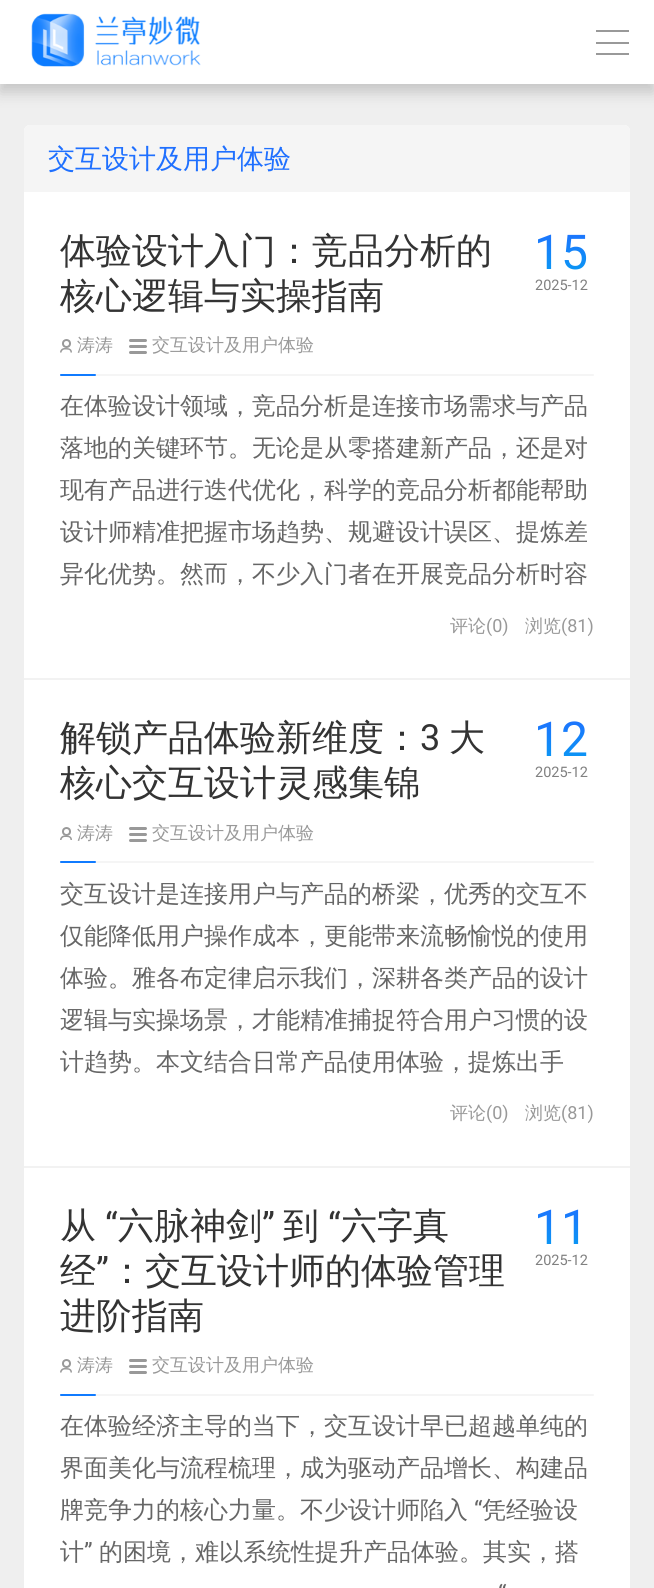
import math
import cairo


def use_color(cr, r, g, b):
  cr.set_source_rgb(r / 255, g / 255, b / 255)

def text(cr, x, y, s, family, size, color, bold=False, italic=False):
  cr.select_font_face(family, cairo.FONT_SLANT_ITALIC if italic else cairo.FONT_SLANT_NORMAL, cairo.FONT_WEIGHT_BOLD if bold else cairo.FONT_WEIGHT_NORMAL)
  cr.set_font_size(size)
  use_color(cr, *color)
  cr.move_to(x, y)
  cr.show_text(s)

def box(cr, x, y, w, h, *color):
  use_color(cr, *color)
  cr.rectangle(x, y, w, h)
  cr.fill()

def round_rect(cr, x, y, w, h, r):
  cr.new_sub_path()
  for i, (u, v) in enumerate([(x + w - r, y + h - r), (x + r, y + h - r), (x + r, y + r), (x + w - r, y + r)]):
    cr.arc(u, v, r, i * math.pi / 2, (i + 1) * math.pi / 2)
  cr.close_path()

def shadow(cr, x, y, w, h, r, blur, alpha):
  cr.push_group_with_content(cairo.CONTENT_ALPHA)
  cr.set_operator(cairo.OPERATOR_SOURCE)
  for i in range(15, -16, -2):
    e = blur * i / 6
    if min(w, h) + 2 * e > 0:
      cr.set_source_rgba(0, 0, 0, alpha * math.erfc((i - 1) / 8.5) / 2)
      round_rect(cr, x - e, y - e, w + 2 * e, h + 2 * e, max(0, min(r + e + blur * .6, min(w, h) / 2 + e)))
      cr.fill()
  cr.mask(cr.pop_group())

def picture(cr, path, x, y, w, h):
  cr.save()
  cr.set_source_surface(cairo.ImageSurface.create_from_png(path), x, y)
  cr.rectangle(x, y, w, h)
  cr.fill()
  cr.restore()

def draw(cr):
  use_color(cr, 239, 239, 239)
  cr.paint()
  use_color(cr, 0, 0, 0)
  shadow(cr, 0, 8, 654, 84, 0, 7.5, 0.18)
  box(cr, 0, 0, 654, 84, 255, 255, 255)
  picture(cr, "img_01.png", 31, 13, 170, 54)
  box(cr, 596, 30, 33, 2, 153, 153, 153)
  box(cr, 596, 42, 33, 2, 153, 153, 153)
  box(cr, 596, 53, 33, 2, 153, 153, 153)
  use_color(cr, 255, 255, 255)
  round_rect(cr, 24, 125, 606, 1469, 6)
  cr.fill()
  use_color(cr, 245, 245, 245)
  cr.new_path()
  cr.move_to(30, 125)
  cr.line_to(624, 125)
  cr.curve_to(627.5, 125, 630, 127.5, 630, 131)
  cr.line_to(630, 192)
  cr.line_to(24, 192)
  cr.line_to(24, 131)
  cr.curve_to(24, 127.5, 26.5, 125, 30, 125)
  cr.close_path()
  cr.fill()
  box(cr, 24, 678, 606, 2, 242, 242, 242)
  use_color(cr, 153, 153, 153)
  cr.set_fill_rule(cairo.FILL_RULE_EVEN_ODD)
  cr.new_path()
  cr.move_to(64.5, 348)
  cr.curve_to(68, 348, 72, 348, 72, 352.5)
  cr.line_to(60, 352.5)
  cr.curve_to(60, 350, 62, 348, 64.5, 348)
  cr.close_path()
  cr.move_to(64.5, 349.5)
  cr.curve_to(67, 349.5, 70.5, 349, 70.5, 352.5)
  cr.line_to(61.5, 352.5)
  cr.curve_to(61.5, 351, 63, 349.5, 64.5, 349.5)
  cr.close_path()
  cr.fill()
  cr.arc(66.5, 343.5, 3.5, 0, 2 * math.pi)
  cr.stroke()
  round_rect(cr, 129, 351, 18, 3, 1.5)
  cr.fill()
  round_rect(cr, 129, 345, 18, 3, 1.5)
  cr.fill()
  round_rect(cr, 129, 339, 18, 3, 1.5)
  cr.fill()
  use_color(cr, 245, 245, 245)
  round_rect(cr, 60, 374, 534, 2, 1)
  cr.fill()
  use_color(cr, 16, 123, 255)
  round_rect(cr, 60, 374, 36, 2, 1)
  cr.fill()
  box(cr, 24, 1166, 606, 2, 242, 242, 242)
  use_color(cr, 153, 153, 153)
  cr.new_path()
  cr.move_to(64.5, 835.5)
  cr.curve_to(68, 835.5, 72, 835.5, 72, 840)
  cr.line_to(60, 840)
  cr.curve_to(60, 837.5, 62, 835.5, 64.5, 835.5)
  cr.close_path()
  cr.move_to(64.5, 837)
  cr.curve_to(67, 837, 70.5, 836.5, 70.5, 840)
  cr.line_to(61.5, 840)
  cr.curve_to(61.5, 838.5, 63, 837, 64.5, 837)
  cr.close_path()
  cr.fill()
  cr.arc(66.5, 831.5, 3.5, 0, 2 * math.pi)
  cr.stroke()
  round_rect(cr, 129, 839, 18, 3, 1.5)
  cr.fill()
  round_rect(cr, 129, 833, 18, 3, 1.5)
  cr.fill()
  round_rect(cr, 129, 827, 18, 3, 1.5)
  cr.fill()
  use_color(cr, 245, 245, 245)
  round_rect(cr, 60, 861, 534, 2, 1)
  cr.fill()
  use_color(cr, 16, 123, 255)
  round_rect(cr, 60, 861, 36, 2, 1)
  cr.fill()
  use_color(cr, 153, 153, 153)
  cr.new_path()
  cr.move_to(64.5, 1368)
  cr.curve_to(68, 1368, 72, 1368, 72, 1372.5)
  cr.line_to(60, 1372.5)
  cr.curve_to(60, 1370, 62, 1368, 64.5, 1368)
  cr.close_path()
  cr.move_to(64.5, 1369.5)
  cr.curve_to(67, 1369.5, 70.5, 1369, 70.5, 1372.5)
  cr.line_to(61.5, 1372.5)
  cr.curve_to(61.5, 1371, 63, 1369.5, 64.5, 1369.5)
  cr.close_path()
  cr.fill()
  cr.arc(66.5, 1363.5, 3.5, 0, 2 * math.pi)
  cr.stroke()
  round_rect(cr, 129, 1371, 18, 3, 1.5)
  cr.fill()
  round_rect(cr, 129, 1365, 18, 3, 1.5)
  cr.fill()
  round_rect(cr, 129, 1359, 18, 3, 1.5)
  cr.fill()
  use_color(cr, 245, 245, 245)
  round_rect(cr, 60, 1394, 534, 2, 1)
  cr.fill()
  use_color(cr, 16, 123, 255)
  round_rect(cr, 60, 1394, 36, 2, 1)
  cr.fill()
  text(cr, 48, 168, "交互设计及用户体验", "WenQuanYi Zen Hei Medium", 27, (31, 112, 255))
  text(cr, 60, 263, "体验设计入门：竞品分析的", "WenQuanYi Zen Hei Medium", 36, (51, 51, 51))
  text(cr, 60, 308, "核心逻辑与实操指南", "WenQuanYi Zen Hei Medium", 36, (51, 51, 51))
  cr.select_font_face("Roboto")
  cr.set_font_size(48)
  gradient = cairo.LinearGradient(561, 294, 561, 228)
  gradient.add_color_stop_rgba(0, 0, 0.667, 0.933, 1)
  gradient.add_color_stop_rgba(1, 0.122, 0.439, 1, 1)
  cr.set_source(gradient)
  cr.move_to(534, 269)
  cr.show_text("15")
  text(cr, 535, 290, "2025-12", "Roboto", 14.5, (128, 128, 128))
  text(cr, 77, 351, "涛涛", "WenQuanYi Zen Hei Medium", 18, (153, 153, 153))
  text(cr, 152, 351, "交互设计及用户体验", "WenQuanYi Zen Hei Medium", 18, (153, 153, 153))
  text(cr, 60, 414, "在体验设计领域，竞品分析是连接市场需求与产品", "WenQuanYi Zen Hei Medium", 24, (102, 102, 102))
  text(cr, 60, 456, "落地的关键环节。无论是从零搭建新产品，还是对", "WenQuanYi Zen Hei Medium", 24, (102, 102, 102))
  text(cr, 60, 498, "现有产品进行迭代优化，科学的竞品分析都能帮助", "WenQuanYi Zen Hei Medium", 24, (102, 102, 102))
  text(cr, 60, 540, "设计师精准把握市场趋势、规避设计误区、提炼差", "WenQuanYi Zen Hei Medium", 24, (102, 102, 102))
  text(cr, 60, 582, "异化优势。然而，不少入门者在开展竞品分析时容", "WenQuanYi Zen Hei Medium", 24, (102, 102, 102))
  text(cr, 450, 632, "评论", "WenQuanYi Zen Hei Medium", 18, (153, 153, 153))
  text(cr, 486, 632, "(0)", "Roboto", 18, (153, 153, 153))
  text(cr, 525, 632, "浏览", "WenQuanYi Zen Hei Medium", 18, (153, 153, 153))
  text(cr, 561, 632, "(81)", "Roboto", 18, (153, 153, 153))
  text(cr, 60, 750, "解锁产品体验新维度：", "WenQuanYi Zen Hei Medium", 36, (51, 51, 51))
  text(cr, 420, 750, "3", "Roboto", 36, (51, 51, 51))
  text(cr, 449, 750, "大", "WenQuanYi Zen Hei Medium", 36, (51, 51, 51))
  text(cr, 60, 795, "核心交互设计灵感集锦", "WenQuanYi Zen Hei Medium", 36, (51, 51, 51))
  cr.select_font_face("Roboto")
  cr.set_font_size(48)
  gradient = cairo.LinearGradient(561, 782, 561, 716)
  gradient.add_color_stop_rgba(0, 0, 0.667, 0.933, 1)
  gradient.add_color_stop_rgba(1, 0.122, 0.439, 1, 1)
  cr.set_source(gradient)
  cr.move_to(534, 756)
  cr.show_text("12")
  text(cr, 535, 777, "2025-12", "Roboto", 14.5, (128, 128, 128))
  text(cr, 77, 839, "涛涛", "WenQuanYi Zen Hei Medium", 18, (153, 153, 153))
  text(cr, 152, 839, "交互设计及用户体验", "WenQuanYi Zen Hei Medium", 18, (153, 153, 153))
  text(cr, 60, 902, "交互设计是连接用户与产品的桥梁，优秀的交互不", "WenQuanYi Zen Hei Medium", 24, (102, 102, 102))
  text(cr, 60, 944, "仅能降低用户操作成本，更能带来流畅愉悦的使用", "WenQuanYi Zen Hei Medium", 24, (102, 102, 102))
  text(cr, 60, 986, "体验。雅各布定律启示我们，深耕各类产品的设计", "WenQuanYi Zen Hei Medium", 24, (102, 102, 102))
  text(cr, 60, 1028, "逻辑与实操场景，才能精准捕捉符合用户习惯的设", "WenQuanYi Zen Hei Medium", 24, (102, 102, 102))
  text(cr, 60, 1070, "计趋势。本文结合日常产品使用体验，提炼出手", "WenQuanYi Zen Hei Medium", 24, (102, 102, 102))
  text(cr, 450, 1119, "评论", "WenQuanYi Zen Hei Medium", 18, (153, 153, 153))
  text(cr, 486, 1119, "(0)", "Roboto", 18, (153, 153, 153))
  text(cr, 525, 1119, "浏览", "WenQuanYi Zen Hei Medium", 18, (153, 153, 153))
  text(cr, 561, 1119, "(81)", "Roboto", 18, (153, 153, 153))
  text(cr, 60, 1238, "从", "WenQuanYi Zen Hei Medium", 36, (51, 51, 51))
  text(cr, 105, 1238, "“", "Roboto", 36, (51, 51, 51))
  text(cr, 118, 1238, "六脉神剑", "WenQuanYi Zen Hei Medium", 36, (51, 51, 51))
  text(cr, 262, 1238, "”", "Roboto", 36, (51, 51, 51))
  text(cr, 283, 1238, "到", "WenQuanYi Zen Hei Medium", 36, (51, 51, 51))
  text(cr, 328, 1238, "“", "Roboto", 36, (51, 51, 51))
  text(cr, 341, 1238, "六字真", "WenQuanYi Zen Hei Medium", 36, (51, 51, 51))
  text(cr, 60, 1283, "经", "WenQuanYi Zen Hei Medium", 36, (51, 51, 51))
  text(cr, 96, 1283, "”", "Roboto", 36, (51, 51, 51))
  text(cr, 109, 1283, "：交互设计师的体验管理", "WenQuanYi Zen Hei Medium", 36, (51, 51, 51))
  text(cr, 60, 1328, "进阶指南", "WenQuanYi Zen Hei Medium", 36, (51, 51, 51))
  cr.select_font_face("Roboto")
  cr.set_font_size(48)
  gradient = cairo.LinearGradient(561, 1269, 561, 1203)
  gradient.add_color_stop_rgba(0, 0, 0.667, 0.933, 1)
  gradient.add_color_stop_rgba(1, 0.122, 0.439, 1, 1)
  cr.set_source(gradient)
  cr.move_to(534, 1244)
  cr.show_text("11")
  text(cr, 535, 1265, "2025-12", "Roboto", 14.5, (128, 128, 128))
  text(cr, 77, 1371, "涛涛", "WenQuanYi Zen Hei Medium", 18, (153, 153, 153))
  text(cr, 152, 1371, "交互设计及用户体验", "WenQuanYi Zen Hei Medium", 18, (153, 153, 153))
  text(cr, 60, 1434, "在体验经济主导的当下，交互设计早已超越单纯的", "WenQuanYi Zen Hei Medium", 24, (102, 102, 102))
  text(cr, 60, 1476, "界面美化与流程梳理，成为驱动产品增长、构建品", "WenQuanYi Zen Hei Medium", 24, (102, 102, 102))
  text(cr, 60, 1518, "牌竞争力的核心力量。不少设计师陷入", "WenQuanYi Zen Hei Medium", 24, (102, 102, 102))
  text(cr, 474, 1518, "“", "Roboto", 24, (102, 102, 102))
  text(cr, 482, 1518, "凭经验设", "WenQuanYi Zen Hei Medium", 24, (102, 102, 102))
  text(cr, 60, 1560, "计", "WenQuanYi Zen Hei Medium", 24, (102, 102, 102))
  text(cr, 84, 1560, "”", "Roboto", 24, (102, 102, 102))
  text(cr, 99, 1560, "的困境，难以系统性提升产品体验。其实，搭", "WenQuanYi Zen Hei Medium", 24, (102, 102, 102))
  text(cr, 498, 1602, "“", "Roboto", 24, (102, 102, 102))


surface = cairo.ImageSurface(cairo.FORMAT_RGB24, 654, 1588)
cr = cairo.Context(surface)
options = cairo.FontOptions()
options.set_hint_metrics(cairo.HINT_METRICS_OFF)
options.set_hint_style(cairo.HINT_STYLE_NONE)
cr.set_font_options(options)
cr.set_miter_limit(4)
draw(cr)
surface.write_to_png("out.png")
